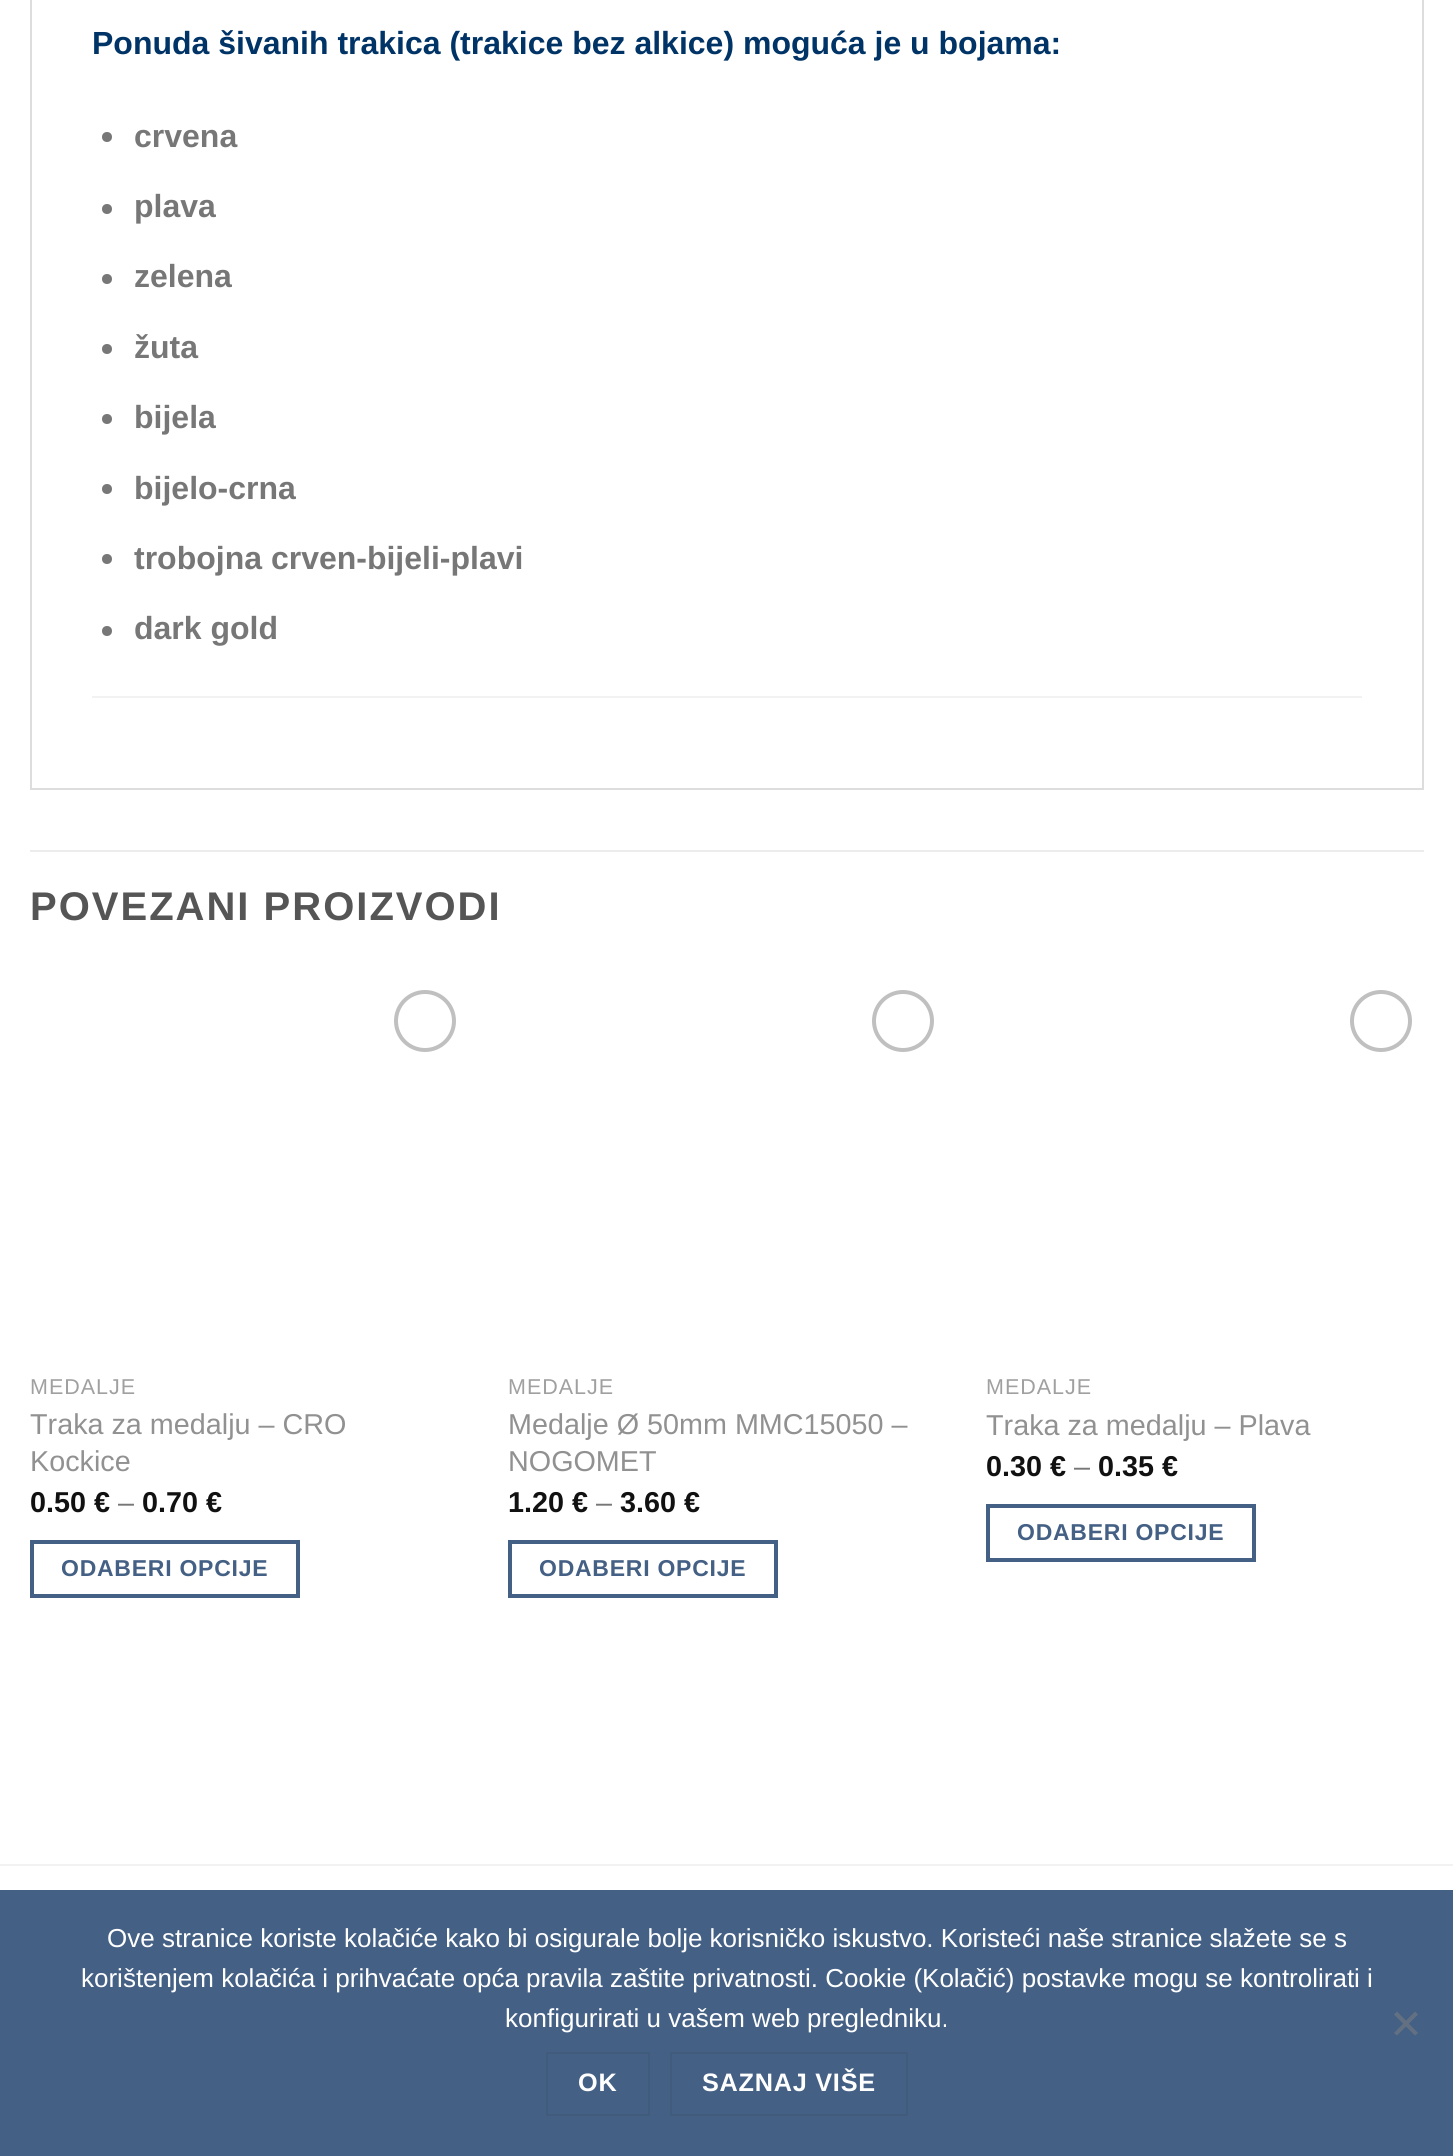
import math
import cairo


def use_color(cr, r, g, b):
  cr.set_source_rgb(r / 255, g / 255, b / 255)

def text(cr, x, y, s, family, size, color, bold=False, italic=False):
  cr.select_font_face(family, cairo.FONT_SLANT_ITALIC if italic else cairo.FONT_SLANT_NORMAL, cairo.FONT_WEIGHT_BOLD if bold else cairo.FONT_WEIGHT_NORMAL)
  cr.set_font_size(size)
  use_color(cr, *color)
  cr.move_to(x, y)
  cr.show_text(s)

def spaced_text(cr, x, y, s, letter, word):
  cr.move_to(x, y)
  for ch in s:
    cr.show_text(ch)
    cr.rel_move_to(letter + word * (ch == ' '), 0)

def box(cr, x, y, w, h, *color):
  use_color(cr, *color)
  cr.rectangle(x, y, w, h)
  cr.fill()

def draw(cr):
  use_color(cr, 255, 255, 255)
  cr.paint()
  cr.rectangle(31, -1, 1392, 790)
  use_color(cr, 221, 221, 221)
  cr.stroke()
  use_color(cr, 119, 119, 119)
  cr.arc(107, 137, 5, 0, 2 * math.pi)
  cr.fill()
  cr.arc(107, 209, 5, 0, 2 * math.pi)
  cr.fill()
  cr.arc(107, 279, 5, 0, 2 * math.pi)
  cr.fill()
  cr.arc(107, 349, 5, 0, 2 * math.pi)
  cr.fill()
  cr.arc(107, 419, 5, 0, 2 * math.pi)
  cr.fill()
  cr.arc(107, 489, 5, 0, 2 * math.pi)
  cr.fill()
  cr.arc(107, 559, 5, 0, 2 * math.pi)
  cr.fill()
  cr.arc(107, 631, 5, 0, 2 * math.pi)
  cr.fill()
  box(cr, 92, 696, 1270, 2, 242, 242, 242)
  box(cr, 30, 850, 1394, 2, 236, 236, 236)
  cr.arc(425, 1021, 29, 0, 2 * math.pi)
  use_color(cr, 192, 192, 192)
  cr.set_line_width(4)
  cr.stroke()
  cr.rectangle(32, 1542, 266, 54)
  use_color(cr, 68, 96, 132)
  cr.stroke()
  cr.arc(903, 1021, 29, 0, 2 * math.pi)
  use_color(cr, 192, 192, 192)
  cr.stroke()
  cr.rectangle(510, 1542, 266, 54)
  use_color(cr, 68, 96, 132)
  cr.stroke()
  cr.arc(1381, 1021, 29, 0, 2 * math.pi)
  use_color(cr, 192, 192, 192)
  cr.stroke()
  cr.rectangle(988, 1506, 266, 54)
  use_color(cr, 68, 96, 132)
  cr.stroke()
  box(cr, 0, 1864, 1453, 2, 242, 242, 242)
  box(cr, 0, 1890, 1453, 266, 68, 96, 132)
  use_color(cr, 98, 112, 130)
  cr.new_path()
  cr.move_to(1415, 2011.5)
  cr.line_to(1418, 2014.5)
  cr.line_to(1397, 2035.5)
  cr.line_to(1394, 2033)
  cr.close_path()
  cr.fill()
  cr.new_path()
  cr.move_to(1394, 2014.5)
  cr.line_to(1397, 2011.5)
  cr.line_to(1418, 2033)
  cr.line_to(1415, 2035.5)
  cr.close_path()
  cr.fill()
  cr.rectangle(547, 2053, 102, 62)
  use_color(cr, 65, 91, 125)
  cr.set_line_width(2)
  cr.stroke()
  cr.rectangle(671, 2053, 236, 62)
  cr.stroke()
  text(cr, 92, 54, "Ponuda šivanih trakica (trakice bez alkice) moguća je u bojama:", "Liberation Sans", 32, (0, 51, 102), bold=True)
  text(cr, 134, 147, "crvena", "Liberation Sans", 32, (119, 119, 119), bold=True)
  text(cr, 134, 217, "plava", "Liberation Sans", 32, (119, 119, 119), bold=True)
  text(cr, 134, 287, "zelena", "Liberation Sans", 32, (119, 119, 119), bold=True)
  text(cr, 134, 358, "žuta", "Liberation Sans", 32, (119, 119, 119), bold=True)
  text(cr, 134, 428, "bijela", "Liberation Sans", 32, (119, 119, 119), bold=True)
  text(cr, 134, 499, "bijelo-crna", "Liberation Sans", 32, (119, 119, 119), bold=True)
  text(cr, 134, 569, "trobojna crven-bijeli-plavi", "Liberation Sans", 32, (119, 119, 119), bold=True)
  text(cr, 134, 639, "dark gold", "Liberation Sans", 32, (119, 119, 119), bold=True)
  cr.set_font_size(40)
  use_color(cr, 85, 85, 85)
  spaced_text(cr, 30, 920, "POVEZANI PROIZVODI", 2, 0)
  cr.select_font_face("Liberation Sans")
  cr.set_font_size(21.5)
  use_color(cr, 160, 160, 160)
  spaced_text(cr, 30, 1394, "MEDALJE", 1, 0)
  text(cr, 30, 1434, "Traka za medalju – CRO", "Liberation Sans", 28.75, (145, 145, 145))
  text(cr, 30, 1471, "Kockice", "Liberation Sans", 28.75, (145, 145, 145))
  text(cr, 30, 1512, "0.50 €", "Liberation Sans", 28.75, (17, 17, 17), bold=True)
  text(cr, 118, 1512, "–", "Liberation Sans", 28.75, (119, 119, 119))
  text(cr, 142, 1512, "0.70 €", "Liberation Sans", 28.75, (17, 17, 17), bold=True)
  cr.set_font_size(23)
  use_color(cr, 68, 96, 132)
  spaced_text(cr, 61, 1576, "ODABERI OPCIJE", 0.75, 0)
  cr.select_font_face("Liberation Sans")
  cr.set_font_size(21.5)
  use_color(cr, 160, 160, 160)
  spaced_text(cr, 508, 1394, "MEDALJE", 1, 0)
  text(cr, 508, 1434, "Medalje Ø 50mm MMC15050 –", "Liberation Sans", 28.75, (145, 145, 145))
  text(cr, 508, 1471, "NOGOMET", "Liberation Sans", 28.75, (145, 145, 145))
  text(cr, 508, 1512, "1.20 €", "Liberation Sans", 28.75, (17, 17, 17), bold=True)
  text(cr, 596, 1512, "–", "Liberation Sans", 28.75, (119, 119, 119))
  text(cr, 620, 1512, "3.60 €", "Liberation Sans", 28.75, (17, 17, 17), bold=True)
  cr.set_font_size(23)
  use_color(cr, 68, 96, 132)
  spaced_text(cr, 539, 1576, "ODABERI OPCIJE", 0.75, 0)
  cr.select_font_face("Liberation Sans")
  cr.set_font_size(21.5)
  use_color(cr, 160, 160, 160)
  spaced_text(cr, 986, 1394, "MEDALJE", 1, 0)
  text(cr, 986, 1435, "Traka za medalju – Plava", "Liberation Sans", 28.75, (145, 145, 145))
  text(cr, 986, 1476, "0.30 €", "Liberation Sans", 28.75, (17, 17, 17), bold=True)
  text(cr, 1074, 1476, "–", "Liberation Sans", 28.75, (119, 119, 119))
  text(cr, 1098, 1476, "0.35 €", "Liberation Sans", 28.75, (17, 17, 17), bold=True)
  cr.set_font_size(23)
  use_color(cr, 68, 96, 132)
  spaced_text(cr, 1017, 1540, "ODABERI OPCIJE", 0.75, 0)
  text(cr, 107, 1947, "Ove stranice koriste kolačiće kako bi osigurale bolje korisničko iskustvo. Koristeći naše stranice slažete se s", "Liberation Sans", 26, (255, 255, 255))
  text(cr, 81, 1987, "korištenjem kolačića i prihvaćate opća pravila zaštite privatnosti. Cookie (Kolačić) postavke mogu se kontrolirati i", "Liberation Sans", 26, (255, 255, 255))
  text(cr, 505, 2027, "konfigurirati u vašem web pregledniku.", "Liberation Sans", 26, (255, 255, 255))
  cr.select_font_face("Liberation Sans", cairo.FONT_SLANT_NORMAL, cairo.FONT_WEIGHT_BOLD)
  cr.set_font_size(25.25)
  spaced_text(cr, 578, 2091, "OK", 0.75, 0)
  spaced_text(cr, 702, 2091, "SAZNAJ VIŠE", 0.75, 0)


surface = cairo.ImageSurface(cairo.FORMAT_RGB24, 1453, 2156)
cr = cairo.Context(surface)
options = cairo.FontOptions()
options.set_hint_metrics(cairo.HINT_METRICS_OFF)
options.set_hint_style(cairo.HINT_STYLE_NONE)
cr.set_font_options(options)
cr.set_miter_limit(4)
draw(cr)
surface.write_to_png("out.png")
